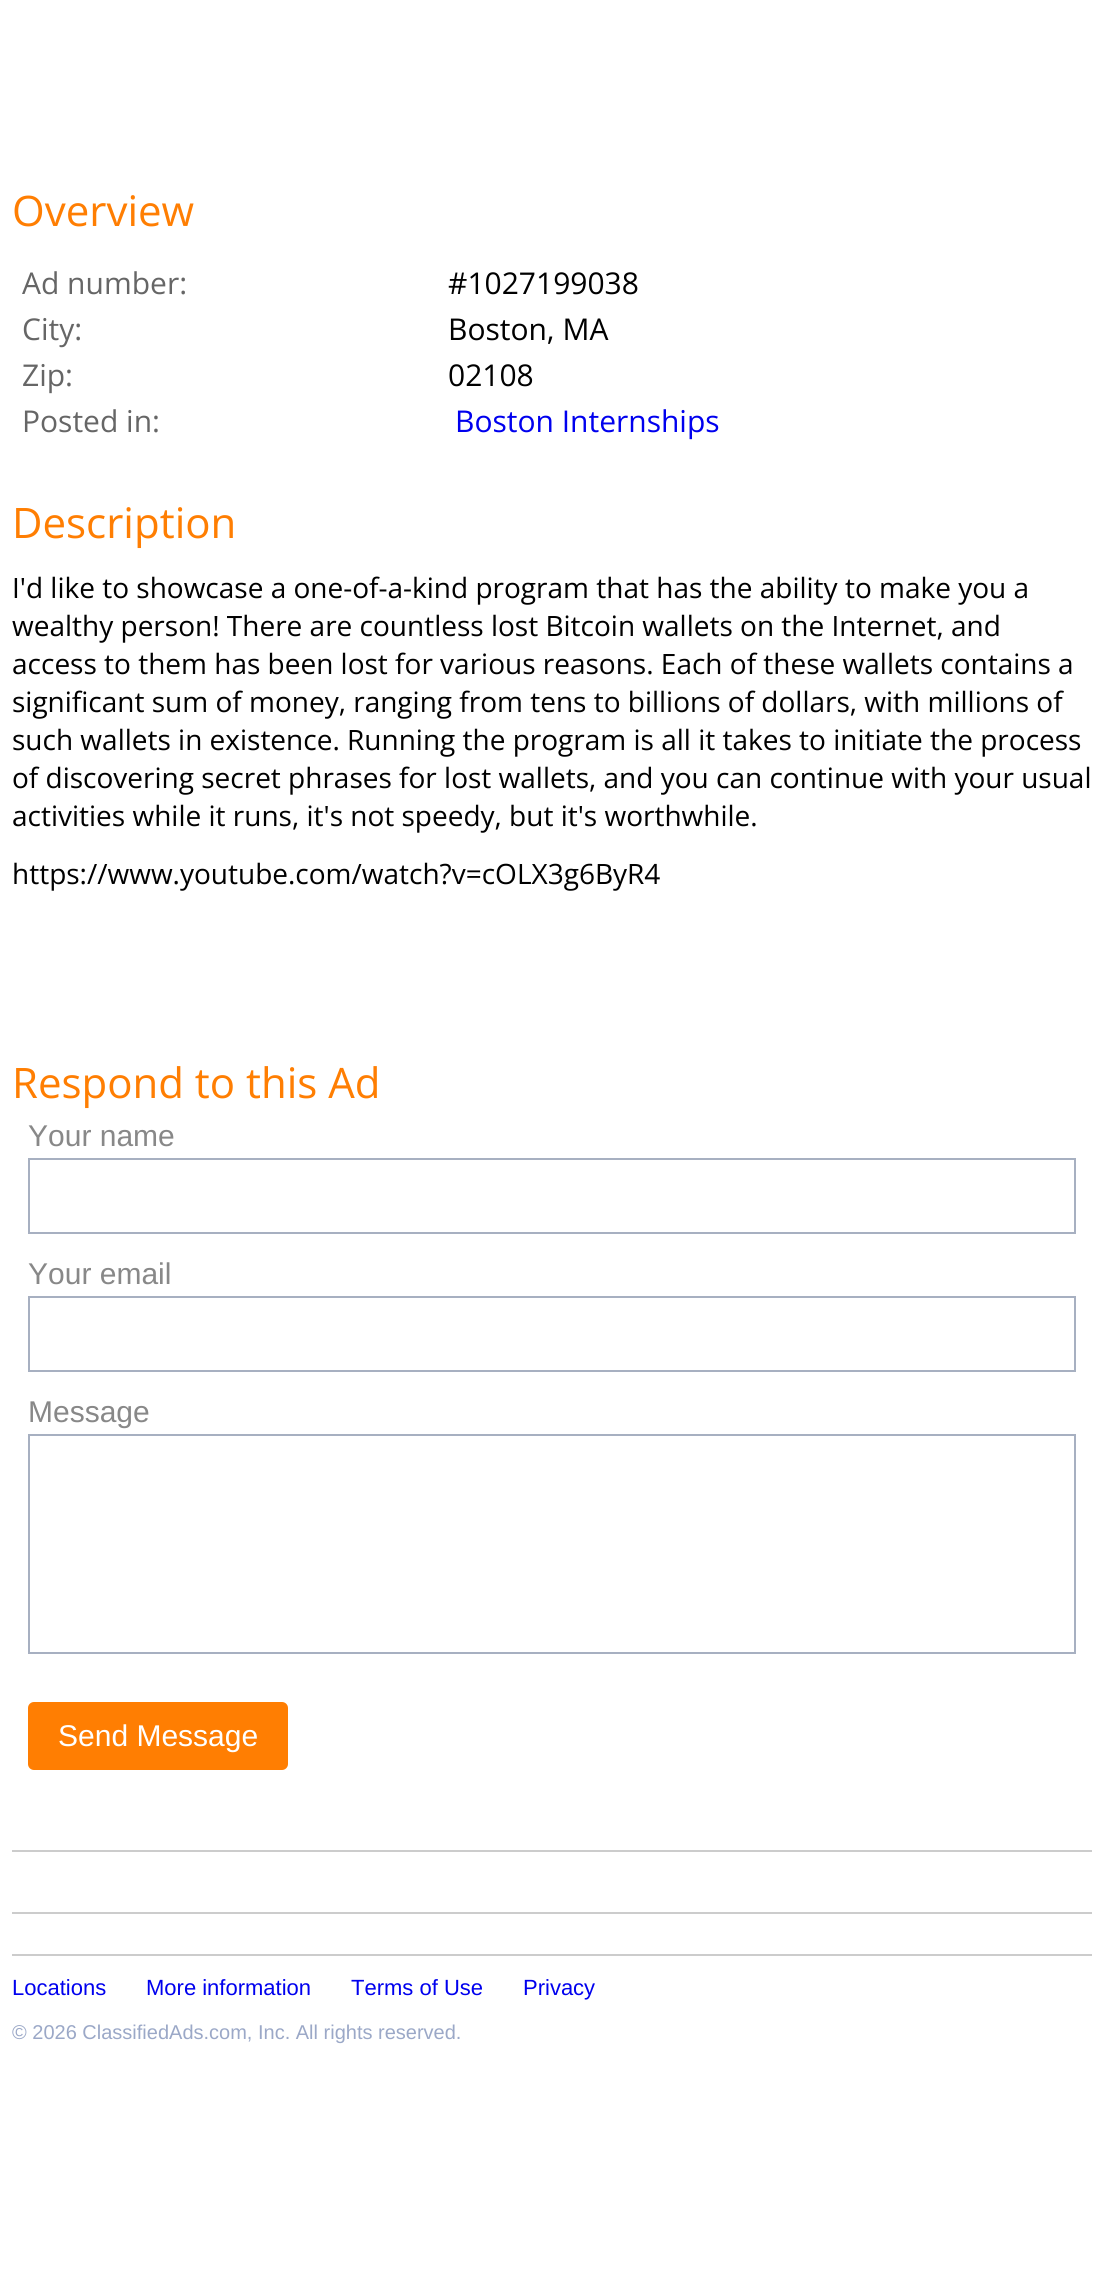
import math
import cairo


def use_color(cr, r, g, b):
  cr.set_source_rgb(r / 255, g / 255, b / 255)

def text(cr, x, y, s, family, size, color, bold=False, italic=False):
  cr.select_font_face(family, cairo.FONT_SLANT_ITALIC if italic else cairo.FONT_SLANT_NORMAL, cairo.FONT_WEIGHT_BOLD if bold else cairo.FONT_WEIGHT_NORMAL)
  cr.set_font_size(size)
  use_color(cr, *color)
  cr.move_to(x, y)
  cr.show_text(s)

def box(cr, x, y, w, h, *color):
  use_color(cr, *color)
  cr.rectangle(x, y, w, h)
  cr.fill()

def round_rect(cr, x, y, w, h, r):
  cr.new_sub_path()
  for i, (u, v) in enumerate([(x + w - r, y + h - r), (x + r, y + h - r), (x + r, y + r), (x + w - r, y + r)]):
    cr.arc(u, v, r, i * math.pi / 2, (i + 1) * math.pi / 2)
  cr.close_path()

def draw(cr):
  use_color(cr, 255, 255, 255)
  cr.paint()
  cr.rectangle(29, 1159, 1046, 74)
  use_color(cr, 167, 176, 193)
  cr.stroke()
  cr.rectangle(29, 1297, 1046, 74)
  cr.stroke()
  cr.rectangle(29, 1435, 1046, 218)
  cr.stroke()
  use_color(cr, 255, 126, 2)
  round_rect(cr, 29, 1703, 258, 66, 5)
  cr.fill_preserve()
  cr.stroke()
  box(cr, 12, 1850, 1080, 2, 204, 204, 204)
  box(cr, 12, 1912, 1080, 2, 204, 204, 204)
  box(cr, 12, 1954, 1080, 2, 204, 204, 204)
  text(cr, 12, 226, "Overview", "Open Sans", 42, (255, 126, 2))
  text(cr, 22, 294, "Ad number:", "Open Sans", 30, (102, 102, 102))
  text(cr, 448, 294, "#1027199038", "Open Sans", 30, (0, 0, 0))
  text(cr, 22, 340, "City:", "Open Sans", 30, (102, 102, 102))
  text(cr, 448, 340, "Boston, MA", "Open Sans", 30, (0, 0, 0))
  text(cr, 22, 386, "Zip:", "Open Sans", 30, (102, 102, 102))
  text(cr, 448, 386, "02108", "Open Sans", 30, (0, 0, 0))
  text(cr, 22, 432, "Posted in:", "Open Sans", 30, (102, 102, 102))
  text(cr, 455, 432, "Boston Internships", "Open Sans", 30, (0, 0, 238))
  text(cr, 12, 538, "Description", "Open Sans", 42, (255, 126, 2))
  text(cr, 12, 598, "I'd like to showcase a one-of-a-kind program that has the ability to make you a", "Open Sans", 28, (0, 0, 0))
  text(cr, 12, 636, "wealthy person! There are countless lost Bitcoin wallets on the Internet, and", "Open Sans", 28, (0, 0, 0))
  text(cr, 12, 674, "access to them has been lost for various reasons. Each of these wallets contains a", "Open Sans", 28, (0, 0, 0))
  text(cr, 12, 712, "significant sum of money, ranging from tens to billions of dollars, with millions of", "Open Sans", 28, (0, 0, 0))
  text(cr, 12, 750, "such wallets in existence. Running the program is all it takes to initiate the process", "Open Sans", 28, (0, 0, 0))
  text(cr, 12, 788, "of discovering secret phrases for lost wallets, and you can continue with your usual", "Open Sans", 28, (0, 0, 0))
  text(cr, 12, 826, "activities while it runs, it's not speedy, but it's worthwhile.", "Open Sans", 28, (0, 0, 0))
  text(cr, 12, 884, "https://www.youtube.com/watch?v=cOLX3g6ByR4", "Open Sans", 28, (0, 0, 0))
  text(cr, 12, 1098, "Respond to this Ad", "Open Sans", 42, (255, 126, 2))
  text(cr, 28, 1146, "Your name", "Liberation Sans", 30, (136, 136, 136))
  text(cr, 28, 1284, "Your email", "Liberation Sans", 30, (136, 136, 136))
  text(cr, 28, 1422, "Message", "Liberation Sans", 30, (136, 136, 136))
  text(cr, 58, 1746, "Send Message", "Liberation Sans", 30, (255, 255, 255))
  text(cr, 12, 1995, "Locations", "Liberation Sans", 22, (0, 0, 238))
  text(cr, 146, 1995, "More information", "Liberation Sans", 22, (0, 0, 238))
  text(cr, 351, 1995, "Terms of Use", "Liberation Sans", 22, (0, 0, 238))
  text(cr, 523, 1995, "Privacy", "Liberation Sans", 22, (0, 0, 238))
  text(cr, 12, 2039, "© 2026 ClassifiedAds.com, Inc. All rights reserved.", "Liberation Sans", 20, (155, 168, 199))


surface = cairo.ImageSurface(cairo.FORMAT_RGB24, 1104, 2273)
cr = cairo.Context(surface)
options = cairo.FontOptions()
options.set_hint_metrics(cairo.HINT_METRICS_OFF)
options.set_hint_style(cairo.HINT_STYLE_NONE)
cr.set_font_options(options)
cr.set_miter_limit(4)
draw(cr)
surface.write_to_png("out.png")
